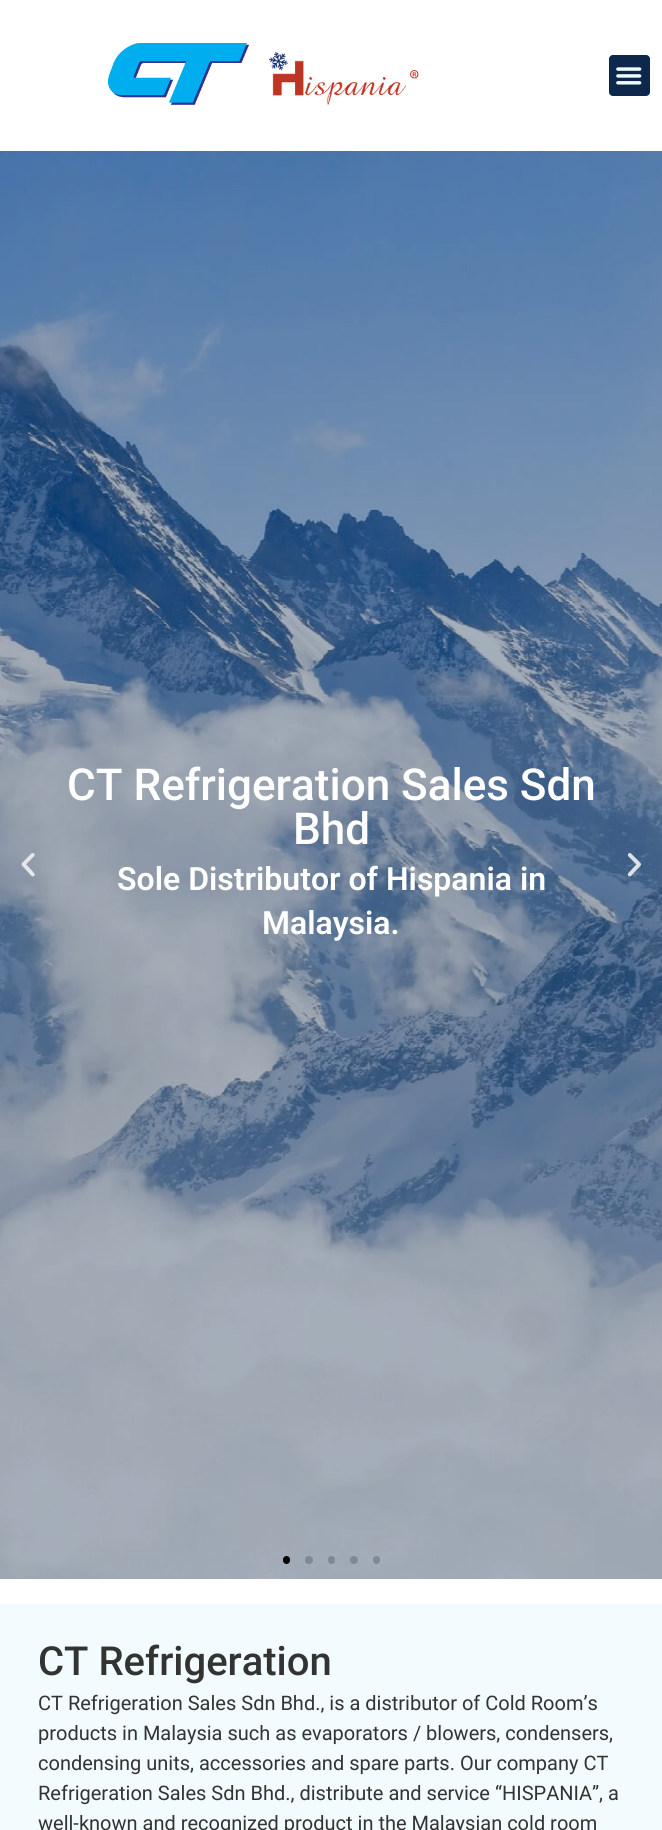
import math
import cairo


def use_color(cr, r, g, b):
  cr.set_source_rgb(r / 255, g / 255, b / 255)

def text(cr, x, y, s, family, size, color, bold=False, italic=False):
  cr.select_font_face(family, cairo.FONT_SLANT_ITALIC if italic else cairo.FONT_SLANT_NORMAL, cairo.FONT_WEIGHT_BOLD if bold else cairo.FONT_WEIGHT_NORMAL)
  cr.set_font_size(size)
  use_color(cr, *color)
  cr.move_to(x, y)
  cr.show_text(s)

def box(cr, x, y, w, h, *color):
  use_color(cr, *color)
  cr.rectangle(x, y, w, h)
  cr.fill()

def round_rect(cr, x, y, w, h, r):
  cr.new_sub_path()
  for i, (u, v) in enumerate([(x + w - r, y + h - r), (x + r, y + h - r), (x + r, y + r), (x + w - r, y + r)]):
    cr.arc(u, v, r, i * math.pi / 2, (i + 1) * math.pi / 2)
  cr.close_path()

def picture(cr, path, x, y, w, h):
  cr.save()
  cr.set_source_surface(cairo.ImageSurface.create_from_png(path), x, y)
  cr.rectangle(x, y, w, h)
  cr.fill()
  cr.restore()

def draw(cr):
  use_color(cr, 255, 255, 255)
  cr.paint()
  picture(cr, "img_01.png", 107, 43, 312, 62)
  use_color(cr, 13, 39, 77)
  round_rect(cr, 609, 55, 41, 41, 4)
  cr.fill()
  picture(cr, "img_02.png", 616, 67, 26, 18)
  picture(cr, "img_04.png", 0, 151, 662, 1428)
  picture(cr, "img_03.png", 21, 853, 14, 24)
  picture(cr, "img_05.png", 627, 853, 14, 24)
  use_color(cr, 0, 0, 0)
  round_rect(cr, 283, 1556, 7, 8, 3.5)
  cr.fill()
  use_color(cr, 128, 136, 146)
  cr.arc(309, 1560, 4, 0, 2 * math.pi)
  cr.fill()
  use_color(cr, 129, 136, 147)
  round_rect(cr, 328, 1556, 7, 8, 3.5)
  cr.fill()
  use_color(cr, 128, 136, 146)
  cr.arc(354, 1560, 4, 0, 2 * math.pi)
  cr.fill()
  use_color(cr, 130, 137, 147)
  round_rect(cr, 373, 1556, 7, 8, 3.5)
  cr.fill()
  box(cr, 0, 1604, 662, 226, 242, 251, 253)
  text(cr, 67, 800, "CT Refrigeration Sales Sdn", "Roboto Medium", 44, (255, 255, 255))
  text(cr, 293, 844, "Bhd", "Roboto Medium", 44, (255, 255, 255))
  text(cr, 117, 890, "Sole Distributor of Hispania in", "Roboto SemiBold", 32, (255, 255, 255))
  text(cr, 262, 934, "Malaysia.", "Roboto SemiBold", 32, (255, 255, 255))
  text(cr, 38, 1675, "CT Refrigeration", "Roboto Medium", 40, (51, 51, 51))
  text(cr, 38, 1710, "CT Refrigeration Sales Sdn Bhd., is a distributor of Cold Room’s", "Roboto", 20, (51, 51, 51))
  text(cr, 38, 1740, "products in Malaysia such as evaporators / blowers, condensers,", "Roboto", 20, (51, 51, 51))
  text(cr, 38, 1770, "condensing units, accessories and spare parts. Our company CT", "Roboto", 20, (51, 51, 51))
  text(cr, 38, 1800, "Refrigeration Sales Sdn Bhd., distribute and service “HISPANIA”, a", "Roboto", 20, (51, 51, 51))
  text(cr, 38, 1830, "well-known and recognized product in the Malaysian cold room", "Roboto", 20, (51, 51, 51))


surface = cairo.ImageSurface(cairo.FORMAT_RGB24, 662, 1830)
cr = cairo.Context(surface)
options = cairo.FontOptions()
options.set_hint_metrics(cairo.HINT_METRICS_OFF)
options.set_hint_style(cairo.HINT_STYLE_NONE)
cr.set_font_options(options)
cr.set_miter_limit(4)
draw(cr)
surface.write_to_png("out.png")
